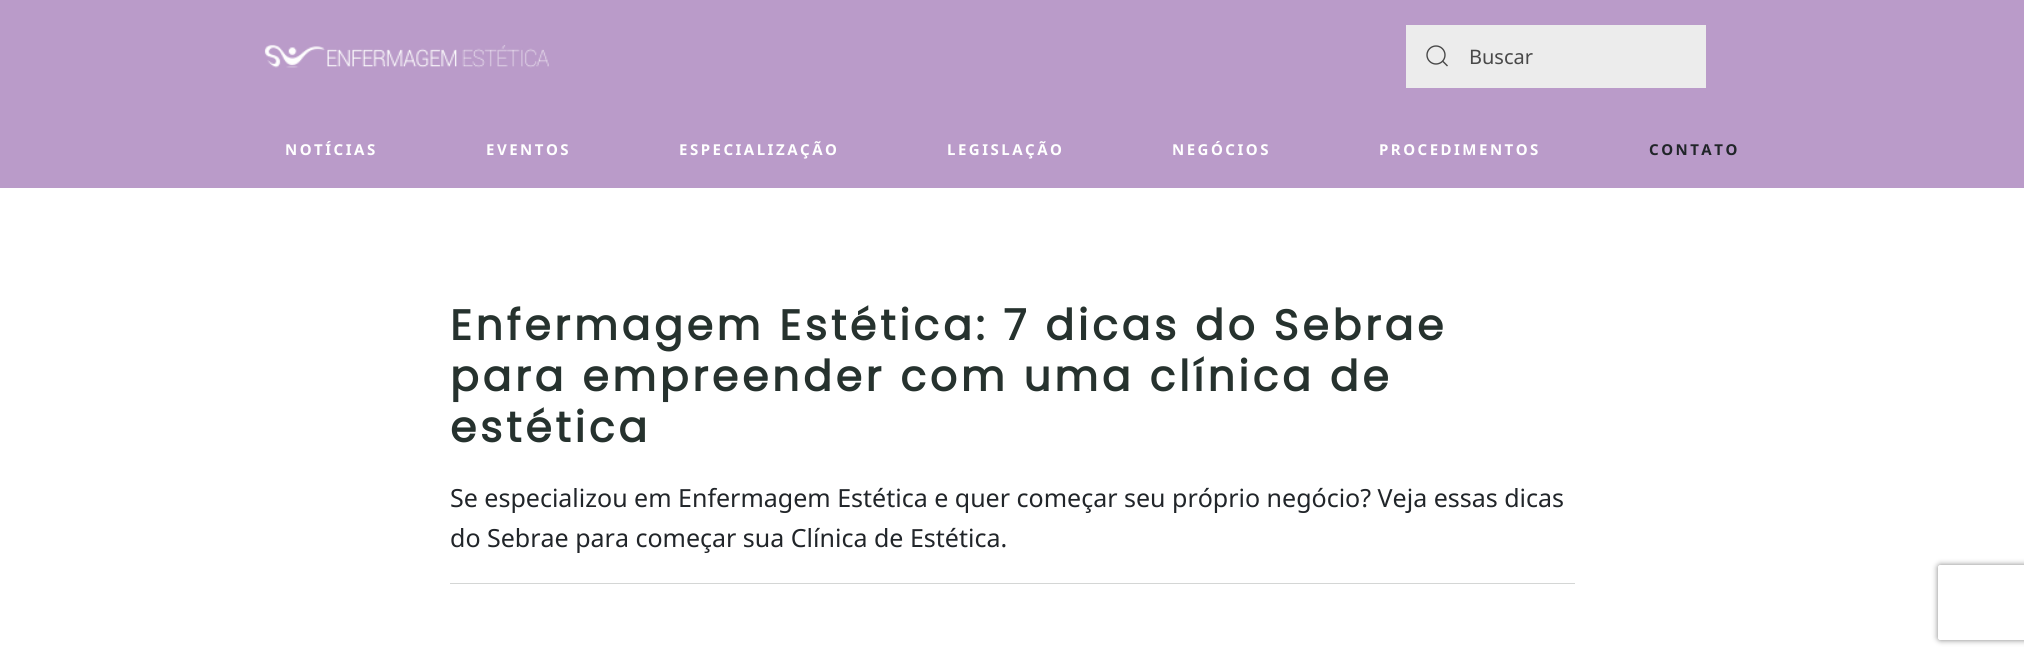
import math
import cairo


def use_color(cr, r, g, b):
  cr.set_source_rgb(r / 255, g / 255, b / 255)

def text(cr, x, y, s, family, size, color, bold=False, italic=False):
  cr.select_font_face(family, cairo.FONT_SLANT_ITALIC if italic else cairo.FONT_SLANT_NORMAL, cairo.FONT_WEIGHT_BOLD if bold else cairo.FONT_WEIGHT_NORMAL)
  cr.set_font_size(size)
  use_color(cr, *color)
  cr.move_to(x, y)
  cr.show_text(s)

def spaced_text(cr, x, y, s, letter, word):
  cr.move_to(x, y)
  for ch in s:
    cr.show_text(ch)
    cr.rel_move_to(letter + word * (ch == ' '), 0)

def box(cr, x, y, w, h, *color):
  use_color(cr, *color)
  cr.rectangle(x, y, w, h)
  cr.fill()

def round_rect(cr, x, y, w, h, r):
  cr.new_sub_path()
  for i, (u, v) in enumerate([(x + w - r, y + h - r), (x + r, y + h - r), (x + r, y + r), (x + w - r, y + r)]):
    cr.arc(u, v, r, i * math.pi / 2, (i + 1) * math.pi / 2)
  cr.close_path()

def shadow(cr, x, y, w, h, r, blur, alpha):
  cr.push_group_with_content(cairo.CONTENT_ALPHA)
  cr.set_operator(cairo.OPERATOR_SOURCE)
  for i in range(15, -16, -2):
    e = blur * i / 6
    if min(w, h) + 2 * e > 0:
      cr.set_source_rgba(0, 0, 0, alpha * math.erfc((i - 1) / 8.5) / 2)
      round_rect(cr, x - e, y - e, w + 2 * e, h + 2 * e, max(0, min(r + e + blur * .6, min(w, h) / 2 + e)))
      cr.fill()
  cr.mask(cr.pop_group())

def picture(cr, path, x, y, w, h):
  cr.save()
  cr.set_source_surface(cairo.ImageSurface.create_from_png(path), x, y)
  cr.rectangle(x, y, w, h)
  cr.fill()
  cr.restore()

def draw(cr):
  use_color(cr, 255, 255, 255)
  cr.paint()
  box(cr, 0, 0, 2024, 188, 186, 155, 201)
  picture(cr, "img_01.png", 264, 44, 285, 24)
  box(cr, 1406, 25, 300, 63, 236, 236, 236)
  cr.arc(1436, 55, 9, 0, 2 * math.pi)
  use_color(cr, 73, 73, 73)
  cr.set_line_width(1.4)
  cr.stroke()
  cr.new_path()
  cr.move_to(1442.5, 61)
  cr.line_to(1447.5, 66)
  cr.close_path()
  cr.stroke()
  box(cr, 450, 583, 1125, 1, 212, 214, 213)
  cr.save()
  cr.set_fill_rule(cairo.FILL_RULE_EVEN_ODD)
  cr.new_path()
  cr.move_to(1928, 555)
  cr.line_to(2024, 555)
  cr.line_to(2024, 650)
  cr.line_to(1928, 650)
  cr.close_path()
  cr.move_to(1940.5, 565)
  cr.line_to(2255.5, 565)
  cr.curve_to(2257, 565, 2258, 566, 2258, 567.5)
  cr.line_to(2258, 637.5)
  cr.curve_to(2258, 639, 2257, 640, 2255.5, 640)
  cr.line_to(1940.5, 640)
  cr.curve_to(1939, 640, 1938, 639, 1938, 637.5)
  cr.line_to(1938, 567.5)
  cr.curve_to(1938, 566, 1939, 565, 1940.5, 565)
  cr.close_path()
  cr.clip()
  use_color(cr, 128, 128, 128)
  shadow(cr, 1938, 565, 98, 75, 2.5, 3, 1)
  cr.restore()
  text(cr, 1469, 64, "Buscar", "Noto Sans", 20, (73, 73, 73))
  cr.select_font_face("Noto Sans", cairo.FONT_SLANT_NORMAL, cairo.FONT_WEIGHT_BOLD)
  cr.set_font_size(15)
  use_color(cr, 255, 255, 255)
  spaced_text(cr, 285, 155, "NOTÍCIAS", 2.5, 0)
  spaced_text(cr, 486, 155, "EVENTOS", 2.5, 0)
  spaced_text(cr, 679, 155, "ESPECIALIZAÇÃO", 2.5, 0)
  spaced_text(cr, 947, 155, "LEGISLAÇÃO", 2.5, 0)
  spaced_text(cr, 1172, 155, "NEGÓCIOS", 2.5, 0)
  spaced_text(cr, 1379, 155, "PROCEDIMENTOS", 2.5, 0)
  use_color(cr, 33, 37, 41)
  spaced_text(cr, 1649, 155, "CONTATO", 2.5, 0)
  cr.select_font_face("Poppins", cairo.FONT_SLANT_NORMAL, cairo.FONT_WEIGHT_BOLD)
  cr.set_font_size(42.5)
  use_color(cr, 38, 50, 46)
  spaced_text(cr, 450, 340, "Enfermagem Estética: 7 dicas do Sebrae", 3.75, 0)
  spaced_text(cr, 450, 391, "para empreender com uma clínica de", 3.75, 0)
  spaced_text(cr, 450, 442, "estética", 3.75, 0)
  text(cr, 450, 507, "Se especializou em Enfermagem Estética e quer começar seu próprio negócio? Veja essas dicas", "Noto Sans", 25, (33, 37, 41))
  text(cr, 450, 547, "do Sebrae para começar sua Clínica de Estética.", "Noto Sans", 25, (33, 37, 41))


surface = cairo.ImageSurface(cairo.FORMAT_RGB24, 2024, 657)
cr = cairo.Context(surface)
options = cairo.FontOptions()
options.set_hint_metrics(cairo.HINT_METRICS_OFF)
options.set_hint_style(cairo.HINT_STYLE_NONE)
cr.set_font_options(options)
cr.set_miter_limit(4)
draw(cr)
surface.write_to_png("out.png")
